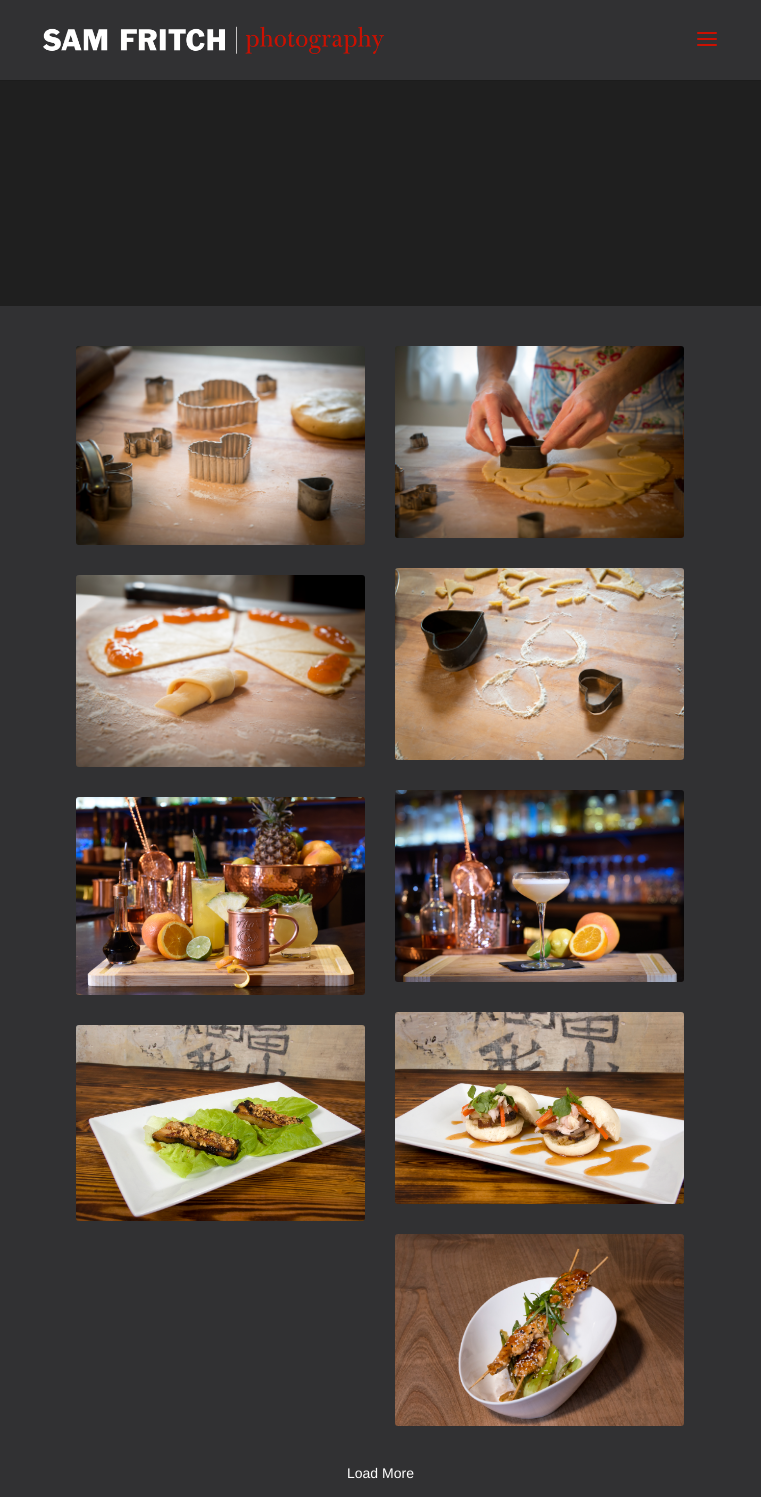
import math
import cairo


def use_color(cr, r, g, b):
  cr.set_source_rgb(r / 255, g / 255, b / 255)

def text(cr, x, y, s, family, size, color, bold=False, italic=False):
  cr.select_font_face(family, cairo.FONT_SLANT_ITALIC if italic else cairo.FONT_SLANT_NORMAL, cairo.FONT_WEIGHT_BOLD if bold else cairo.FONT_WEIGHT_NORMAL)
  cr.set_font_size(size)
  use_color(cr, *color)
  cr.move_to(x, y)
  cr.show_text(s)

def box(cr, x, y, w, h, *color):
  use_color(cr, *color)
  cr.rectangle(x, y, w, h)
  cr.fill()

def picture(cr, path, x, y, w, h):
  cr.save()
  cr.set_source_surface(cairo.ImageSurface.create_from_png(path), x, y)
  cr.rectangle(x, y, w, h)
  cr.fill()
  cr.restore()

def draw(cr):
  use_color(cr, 31, 31, 31)
  cr.paint()
  box(cr, 0, 80, 761, 1, 28, 28, 28)
  box(cr, 0, 0, 761, 80, 49, 49, 51)
  picture(cr, "img_01.png", 43, 26, 341, 28)
  picture(cr, "img_02.png", 697, 32, 20, 14)
  box(cr, 0, 306, 761, 1191, 49, 49, 51)
  picture(cr, "img_03.png", 76, 346, 289, 199)
  picture(cr, "img_04.png", 395, 346, 289, 192)
  picture(cr, "img_05.png", 76, 575, 289, 192)
  picture(cr, "img_06.png", 395, 568, 289, 192)
  picture(cr, "img_07.png", 76, 797, 289, 198)
  picture(cr, "img_08.png", 395, 790, 289, 192)
  picture(cr, "img_09.png", 76, 1025, 289, 196)
  picture(cr, "img_10.png", 395, 1012, 289, 192)
  picture(cr, "img_11.png", 395, 1234, 289, 192)
  text(cr, 347, 1478, "Load More", "Liberation Sans", 14, (255, 255, 255))


surface = cairo.ImageSurface(cairo.FORMAT_RGB24, 761, 1497)
cr = cairo.Context(surface)
options = cairo.FontOptions()
options.set_hint_metrics(cairo.HINT_METRICS_OFF)
options.set_hint_style(cairo.HINT_STYLE_NONE)
cr.set_font_options(options)
cr.set_miter_limit(4)
draw(cr)
surface.write_to_png("out.png")
